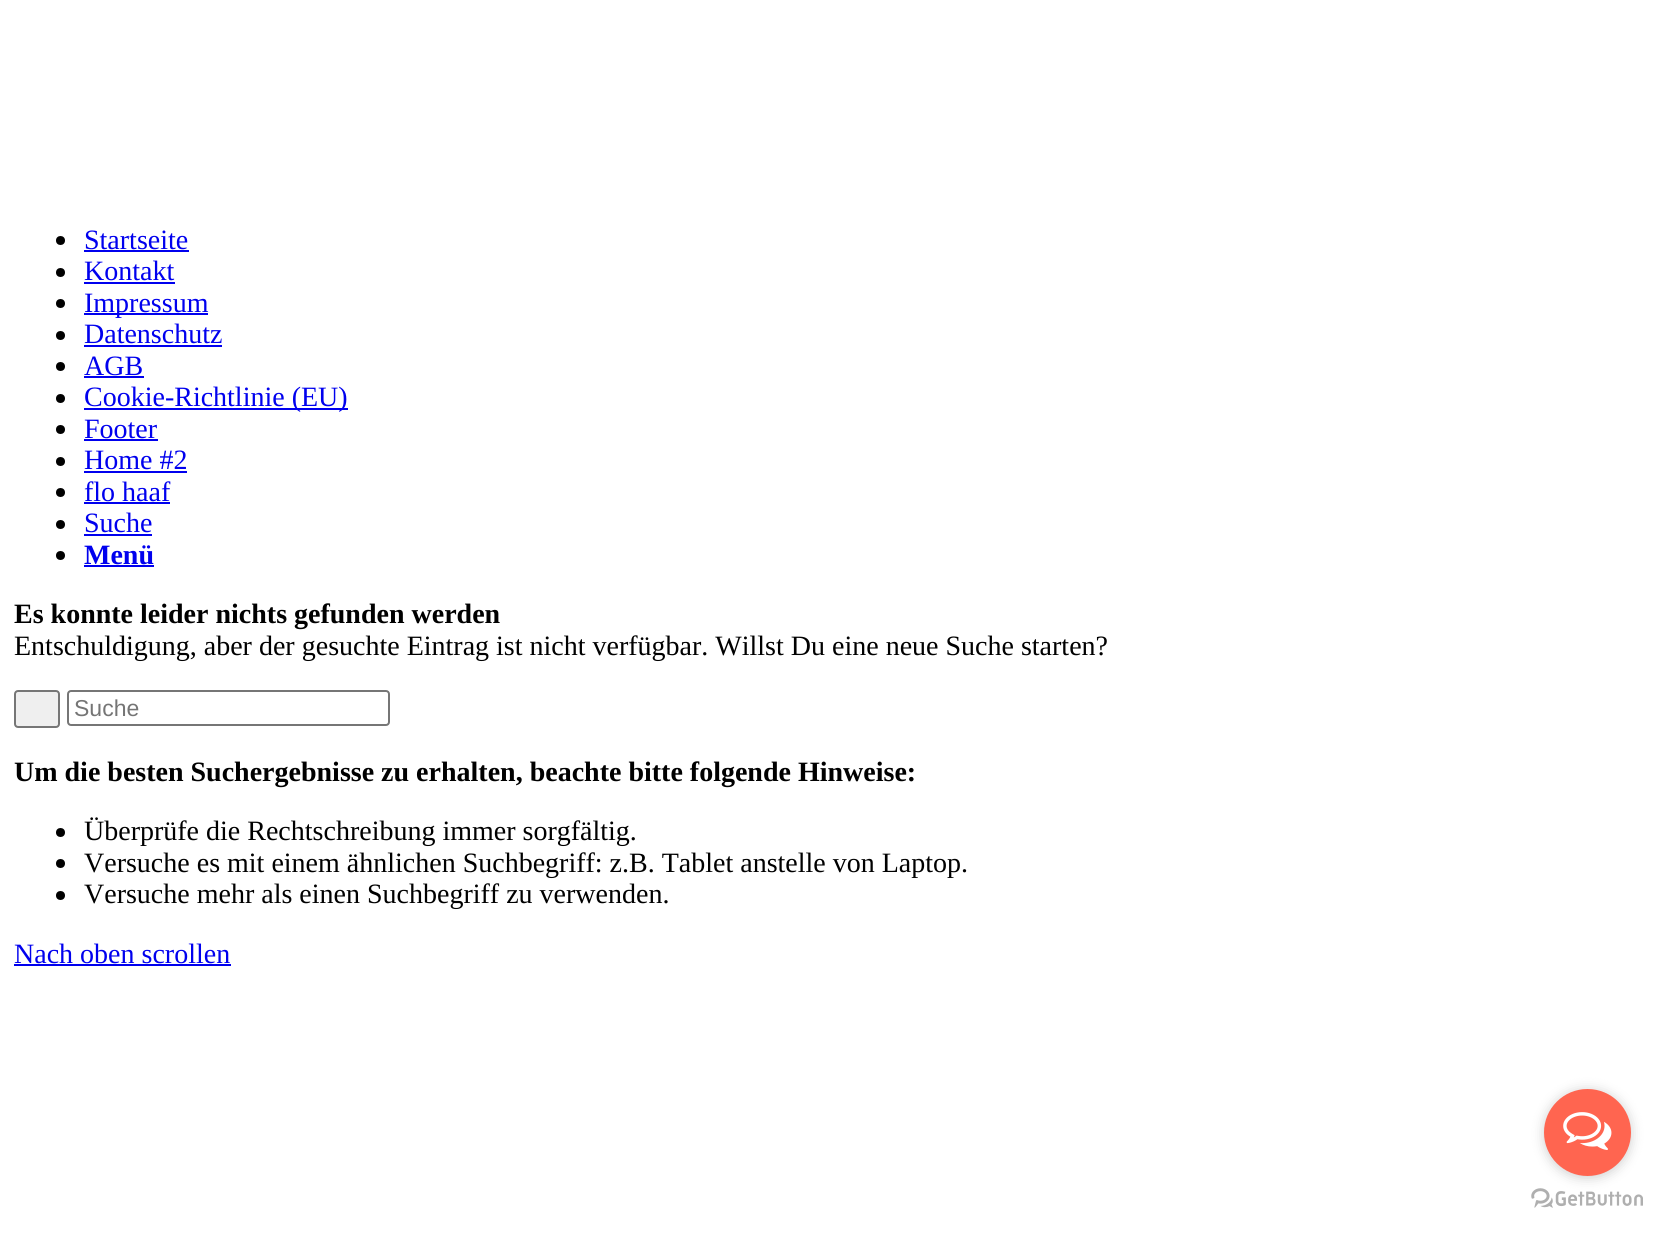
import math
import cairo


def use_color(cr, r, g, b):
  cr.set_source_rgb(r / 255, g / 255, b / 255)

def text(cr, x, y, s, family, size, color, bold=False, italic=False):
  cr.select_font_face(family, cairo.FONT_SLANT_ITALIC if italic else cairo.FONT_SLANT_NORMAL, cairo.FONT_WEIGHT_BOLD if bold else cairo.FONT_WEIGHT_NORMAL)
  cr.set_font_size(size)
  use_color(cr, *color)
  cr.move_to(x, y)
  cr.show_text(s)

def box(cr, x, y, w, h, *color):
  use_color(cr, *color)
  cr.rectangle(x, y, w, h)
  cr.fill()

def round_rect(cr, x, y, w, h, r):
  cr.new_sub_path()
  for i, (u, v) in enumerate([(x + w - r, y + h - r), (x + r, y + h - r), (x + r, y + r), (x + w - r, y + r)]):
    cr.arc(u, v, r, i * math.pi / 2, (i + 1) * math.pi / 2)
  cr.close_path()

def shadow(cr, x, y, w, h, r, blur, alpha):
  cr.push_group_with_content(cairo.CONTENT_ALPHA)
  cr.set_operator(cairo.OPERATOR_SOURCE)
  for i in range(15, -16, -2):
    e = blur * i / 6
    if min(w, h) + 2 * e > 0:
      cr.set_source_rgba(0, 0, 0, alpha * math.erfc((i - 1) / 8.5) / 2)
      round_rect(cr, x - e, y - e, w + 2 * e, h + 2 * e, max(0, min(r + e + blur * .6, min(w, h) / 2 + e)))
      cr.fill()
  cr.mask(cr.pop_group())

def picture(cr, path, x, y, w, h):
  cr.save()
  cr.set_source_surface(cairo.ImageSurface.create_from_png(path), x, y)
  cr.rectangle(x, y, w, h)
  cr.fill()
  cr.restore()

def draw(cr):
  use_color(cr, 255, 255, 255)
  cr.paint()
  use_color(cr, 0, 0, 0)
  cr.arc(60.5, 240.5, 4.5, 0, 2 * math.pi)
  cr.fill()
  box(cr, 84, 250, 105, 2, 0, 0, 238)
  use_color(cr, 0, 0, 0)
  cr.arc(60.5, 272.5, 4.5, 0, 2 * math.pi)
  cr.fill()
  box(cr, 84, 282, 91, 2, 0, 0, 238)
  use_color(cr, 0, 0, 0)
  cr.arc(60.5, 303.5, 4.5, 0, 2 * math.pi)
  cr.fill()
  box(cr, 84, 313, 124, 2, 0, 0, 238)
  use_color(cr, 0, 0, 0)
  cr.arc(60.5, 335.5, 4.5, 0, 2 * math.pi)
  cr.fill()
  box(cr, 84, 345, 138, 2, 0, 0, 238)
  use_color(cr, 0, 0, 0)
  cr.arc(60.5, 366.5, 4.5, 0, 2 * math.pi)
  cr.fill()
  box(cr, 84, 376, 60, 2, 0, 0, 238)
  use_color(cr, 0, 0, 0)
  cr.arc(60.5, 398.5, 4.5, 0, 2 * math.pi)
  cr.fill()
  box(cr, 84, 408, 264, 2, 0, 0, 238)
  use_color(cr, 0, 0, 0)
  cr.arc(60.5, 429.5, 4.5, 0, 2 * math.pi)
  cr.fill()
  box(cr, 84, 439, 74, 2, 0, 0, 238)
  use_color(cr, 0, 0, 0)
  cr.arc(60.5, 461.5, 4.5, 0, 2 * math.pi)
  cr.fill()
  box(cr, 84, 471, 103, 2, 0, 0, 238)
  use_color(cr, 0, 0, 0)
  cr.arc(60.5, 492.5, 4.5, 0, 2 * math.pi)
  cr.fill()
  box(cr, 84, 502, 86, 2, 0, 0, 238)
  use_color(cr, 0, 0, 0)
  cr.arc(60.5, 524.5, 4.5, 0, 2 * math.pi)
  cr.fill()
  box(cr, 84, 534, 68, 2, 0, 0, 238)
  use_color(cr, 0, 0, 0)
  cr.arc(60.5, 555.5, 4.5, 0, 2 * math.pi)
  cr.fill()
  box(cr, 84, 565, 70, 2, 0, 0, 238)
  use_color(cr, 239, 239, 239)
  round_rect(cr, 15, 691, 44, 36, 3)
  cr.fill_preserve()
  use_color(cr, 118, 118, 118)
  cr.stroke()
  round_rect(cr, 68, 691, 321, 34, 3)
  cr.stroke()
  use_color(cr, 0, 0, 0)
  cr.arc(60.5, 832.5, 4.5, 0, 2 * math.pi)
  cr.fill()
  cr.arc(60.5, 863.5, 4.5, 0, 2 * math.pi)
  cr.fill()
  cr.arc(60.5, 895.5, 4.5, 0, 2 * math.pi)
  cr.fill()
  box(cr, 14, 964, 217, 2, 0, 0, 238)
  picture(cr, "img_02.png", 1531, 1188, 112, 20)
  use_color(cr, 136, 136, 136)
  shadow(cr, 1544, 1090, 87, 88, 43.5, 6, 0.4)
  use_color(cr, 255, 101, 80)
  cr.arc(1587.5, 1132.5, 43.5, 0, 2 * math.pi)
  cr.fill()
  picture(cr, "img_01.png", 1563, 1112, 49, 38)
  text(cr, 84, 249, "Startseite", "Liberation Serif", 28, (0, 0, 238))
  text(cr, 84, 280, "Kontakt", "Liberation Serif", 28, (0, 0, 238))
  text(cr, 84, 312, "Impressum", "Liberation Serif", 28, (0, 0, 238))
  text(cr, 84, 343, "Datenschutz", "Liberation Serif", 28, (0, 0, 238))
  text(cr, 84, 375, "AGB", "Liberation Serif", 28, (0, 0, 238))
  text(cr, 84, 406, "Cookie-Richtlinie (EU)", "Liberation Serif", 28, (0, 0, 238))
  text(cr, 84, 438, "Footer", "Liberation Serif", 28, (0, 0, 238))
  text(cr, 84, 469, "Home #2", "Liberation Serif", 28, (0, 0, 238))
  text(cr, 84, 501, "flo haaf", "Liberation Serif", 28, (0, 0, 238))
  text(cr, 84, 532, "Suche", "Liberation Serif", 28, (0, 0, 238))
  text(cr, 84, 564, "Menü", "Liberation Serif", 28, (0, 0, 238), bold=True)
  text(cr, 14, 623, "Es konnte leider nichts gefunden werden", "Liberation Serif", 28, (0, 0, 0), bold=True)
  text(cr, 14, 655, "Entschuldigung, aber der gesuchte Eintrag ist nicht verfügbar. Willst Du eine neue Suche starten?", "Liberation Serif", 28, (0, 0, 0))
  text(cr, 74, 716, "Suche", "Liberation Sans", 23, (117, 117, 117))
  text(cr, 14, 781, "Um die besten Suchergebnisse zu erhalten, beachte bitte folgende Hinweise:", "Liberation Serif", 28, (0, 0, 0), bold=True)
  text(cr, 84, 840, "Überprüfe die Rechtschreibung immer sorgfältig.", "Liberation Serif", 28, (0, 0, 0))
  text(cr, 84, 872, "Versuche es mit einem ähnlichen Suchbegriff: z.B. Tablet anstelle von Laptop.", "Liberation Serif", 28, (0, 0, 0))
  text(cr, 84, 903, "Versuche mehr als einen Suchbegriff zu verwenden.", "Liberation Serif", 28, (0, 0, 0))
  text(cr, 14, 963, "Nach oben scrollen", "Liberation Serif", 28, (0, 0, 238))


surface = cairo.ImageSurface(cairo.FORMAT_RGB24, 1671, 1234)
cr = cairo.Context(surface)
options = cairo.FontOptions()
options.set_hint_metrics(cairo.HINT_METRICS_OFF)
options.set_hint_style(cairo.HINT_STYLE_NONE)
cr.set_font_options(options)
cr.set_miter_limit(4)
draw(cr)
surface.write_to_png("out.png")
